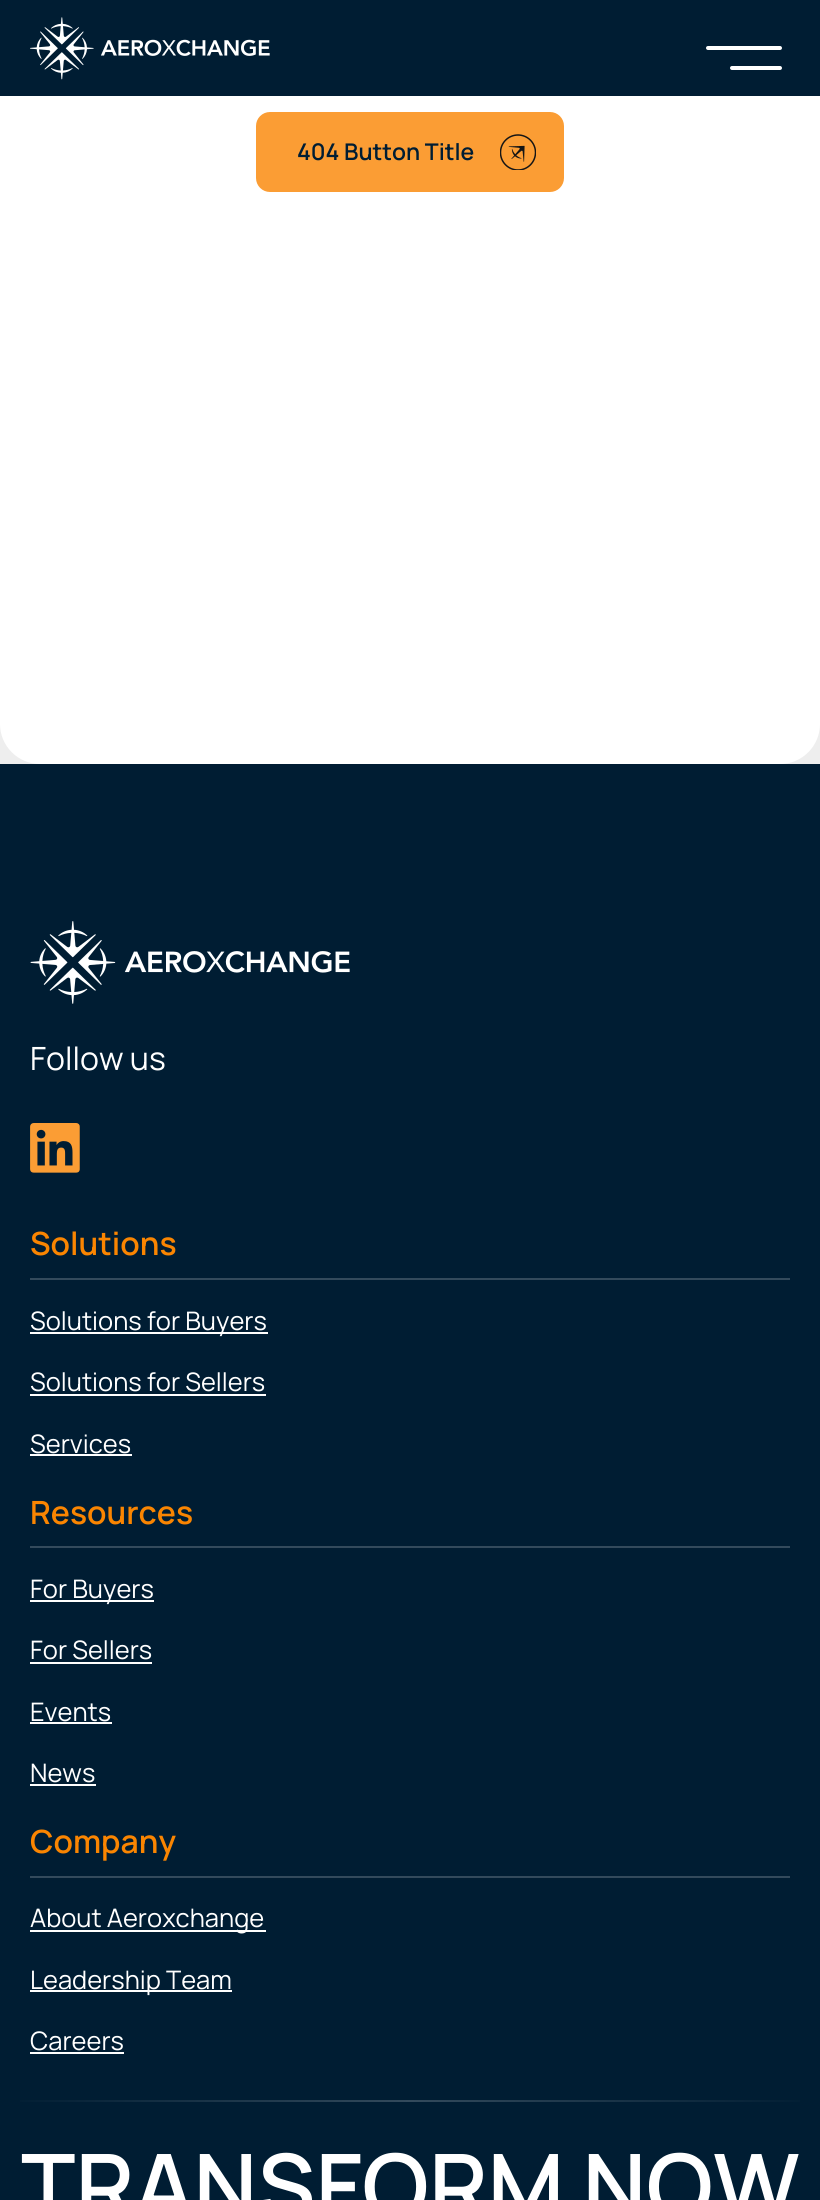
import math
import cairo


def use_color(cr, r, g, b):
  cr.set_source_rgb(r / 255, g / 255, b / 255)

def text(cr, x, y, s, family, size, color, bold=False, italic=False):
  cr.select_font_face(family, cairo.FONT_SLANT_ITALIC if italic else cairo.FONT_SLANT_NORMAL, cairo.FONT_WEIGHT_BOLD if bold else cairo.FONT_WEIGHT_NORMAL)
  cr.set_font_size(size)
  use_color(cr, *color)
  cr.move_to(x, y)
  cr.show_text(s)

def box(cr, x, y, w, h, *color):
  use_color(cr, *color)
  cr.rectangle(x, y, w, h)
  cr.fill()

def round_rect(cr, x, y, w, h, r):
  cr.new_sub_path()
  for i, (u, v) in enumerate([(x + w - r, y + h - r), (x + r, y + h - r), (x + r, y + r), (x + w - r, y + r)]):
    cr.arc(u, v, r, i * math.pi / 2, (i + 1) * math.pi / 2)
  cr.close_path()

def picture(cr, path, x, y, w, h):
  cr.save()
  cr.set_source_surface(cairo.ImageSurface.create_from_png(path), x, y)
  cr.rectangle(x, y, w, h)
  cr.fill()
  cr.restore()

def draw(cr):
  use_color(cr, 238, 238, 238)
  cr.paint()
  use_color(cr, 255, 255, 255)
  cr.new_path()
  cr.move_to(0, -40)
  cr.line_to(820, -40)
  cr.line_to(820, 724)
  cr.curve_to(820, 746, 802, 764, 780, 764)
  cr.line_to(40, 764)
  cr.curve_to(18, 764, 0, 746, 0, 724)
  cr.close_path()
  cr.fill()
  box(cr, 0, 0, 820, 96, 0, 29, 51)
  picture(cr, "img_01.png", 30, 17, 240, 63)
  use_color(cr, 255, 255, 255)
  round_rect(cr, 706, 46, 76, 4, 2)
  cr.fill()
  round_rect(cr, 730, 66, 52, 4, 2)
  cr.fill()
  use_color(cr, 251, 157, 52)
  round_rect(cr, 257, 113, 306, 78, 13)
  cr.fill_preserve()
  cr.stroke()
  picture(cr, "img_02.png", 500, 134, 36, 36)
  box(cr, 0, 764, 820, 1436, 0, 29, 51)
  picture(cr, "img_03.png", 30, 921, 320, 83)
  picture(cr, "img_04.png", 30, 1123, 50, 50)
  box(cr, 30, 1278, 760, 2, 51, 74, 92)
  box(cr, 30, 1332, 238, 2, 255, 255, 255)
  box(cr, 30, 1394, 236, 2, 255, 255, 255)
  box(cr, 30, 1454, 102, 2, 255, 255, 255)
  box(cr, 30, 1546, 760, 2, 51, 74, 92)
  box(cr, 30, 1600, 124, 2, 255, 255, 255)
  box(cr, 30, 1662, 122, 2, 255, 255, 255)
  box(cr, 30, 1722, 82, 2, 255, 255, 255)
  box(cr, 30, 1784, 66, 2, 255, 255, 255)
  box(cr, 30, 1876, 760, 2, 51, 74, 92)
  box(cr, 30, 1930, 236, 2, 255, 255, 255)
  box(cr, 30, 1990, 202, 2, 255, 255, 255)
  box(cr, 30, 2052, 94, 2, 255, 255, 255)
  gradient = cairo.LinearGradient(0, 2101, 820, 2101)
  gradient.add_color_stop_rgba(0, 0, 0.114, 0.2, 1)
  gradient.add_color_stop_rgba(0.5, 0.2, 0.29, 0.361, 1)
  gradient.add_color_stop_rgba(1, 0, 0.114, 0.2, 1)
  cr.set_source(gradient)
  cr.rectangle(20, 2100, 780, 2)
  cr.fill()
  text(cr, 297, 160, "404 Button Title", "Manrope ExtraLight", 23, (0, 29, 51))
  text(cr, 30, 1070, "Follow us", "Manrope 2 ExtraLight", 32, (255, 255, 255))
  text(cr, 30, 1255, "Solutions", "Manrope ExtraLight", 32, (250, 133, 1))
  text(cr, 30, 1330, "Solutions for Buyers", "Manrope 2 ExtraLight", 25.5, (255, 255, 255))
  text(cr, 30, 1391, "Solutions for Sellers", "Manrope 2 ExtraLight", 25.5, (255, 255, 255))
  text(cr, 30, 1453, "Services", "Manrope 2 ExtraLight", 25.5, (255, 255, 255))
  text(cr, 30, 1524, "Resources", "Manrope ExtraLight", 32, (250, 133, 1))
  text(cr, 30, 1598, "For Buyers", "Manrope 2 ExtraLight", 25.5, (255, 255, 255))
  text(cr, 30, 1659, "For Sellers", "Manrope 2 ExtraLight", 25.5, (255, 255, 255))
  text(cr, 30, 1721, "Events", "Manrope 2 ExtraLight", 25.5, (255, 255, 255))
  text(cr, 30, 1782, "News", "Manrope 2 ExtraLight", 25.5, (255, 255, 255))
  text(cr, 30, 1853, "Company", "Manrope ExtraLight", 32, (250, 133, 1))
  text(cr, 30, 1927, "About Aeroxchange", "Manrope 2 ExtraLight", 25.5, (255, 255, 255))
  text(cr, 30, 1989, "Leadership Team", "Manrope 2 ExtraLight", 25.5, (255, 255, 255))
  text(cr, 30, 2050, "Careers", "Manrope 2 ExtraLight", 25.5, (255, 255, 255))
  text(cr, 21, 2219, "TRANSFORM NOW", "Manrope ExtraLight", 90.25, (255, 255, 255))


surface = cairo.ImageSurface(cairo.FORMAT_RGB24, 820, 2200)
cr = cairo.Context(surface)
options = cairo.FontOptions()
options.set_hint_metrics(cairo.HINT_METRICS_OFF)
options.set_hint_style(cairo.HINT_STYLE_NONE)
cr.set_font_options(options)
cr.set_miter_limit(4)
draw(cr)
surface.write_to_png("out.png")
